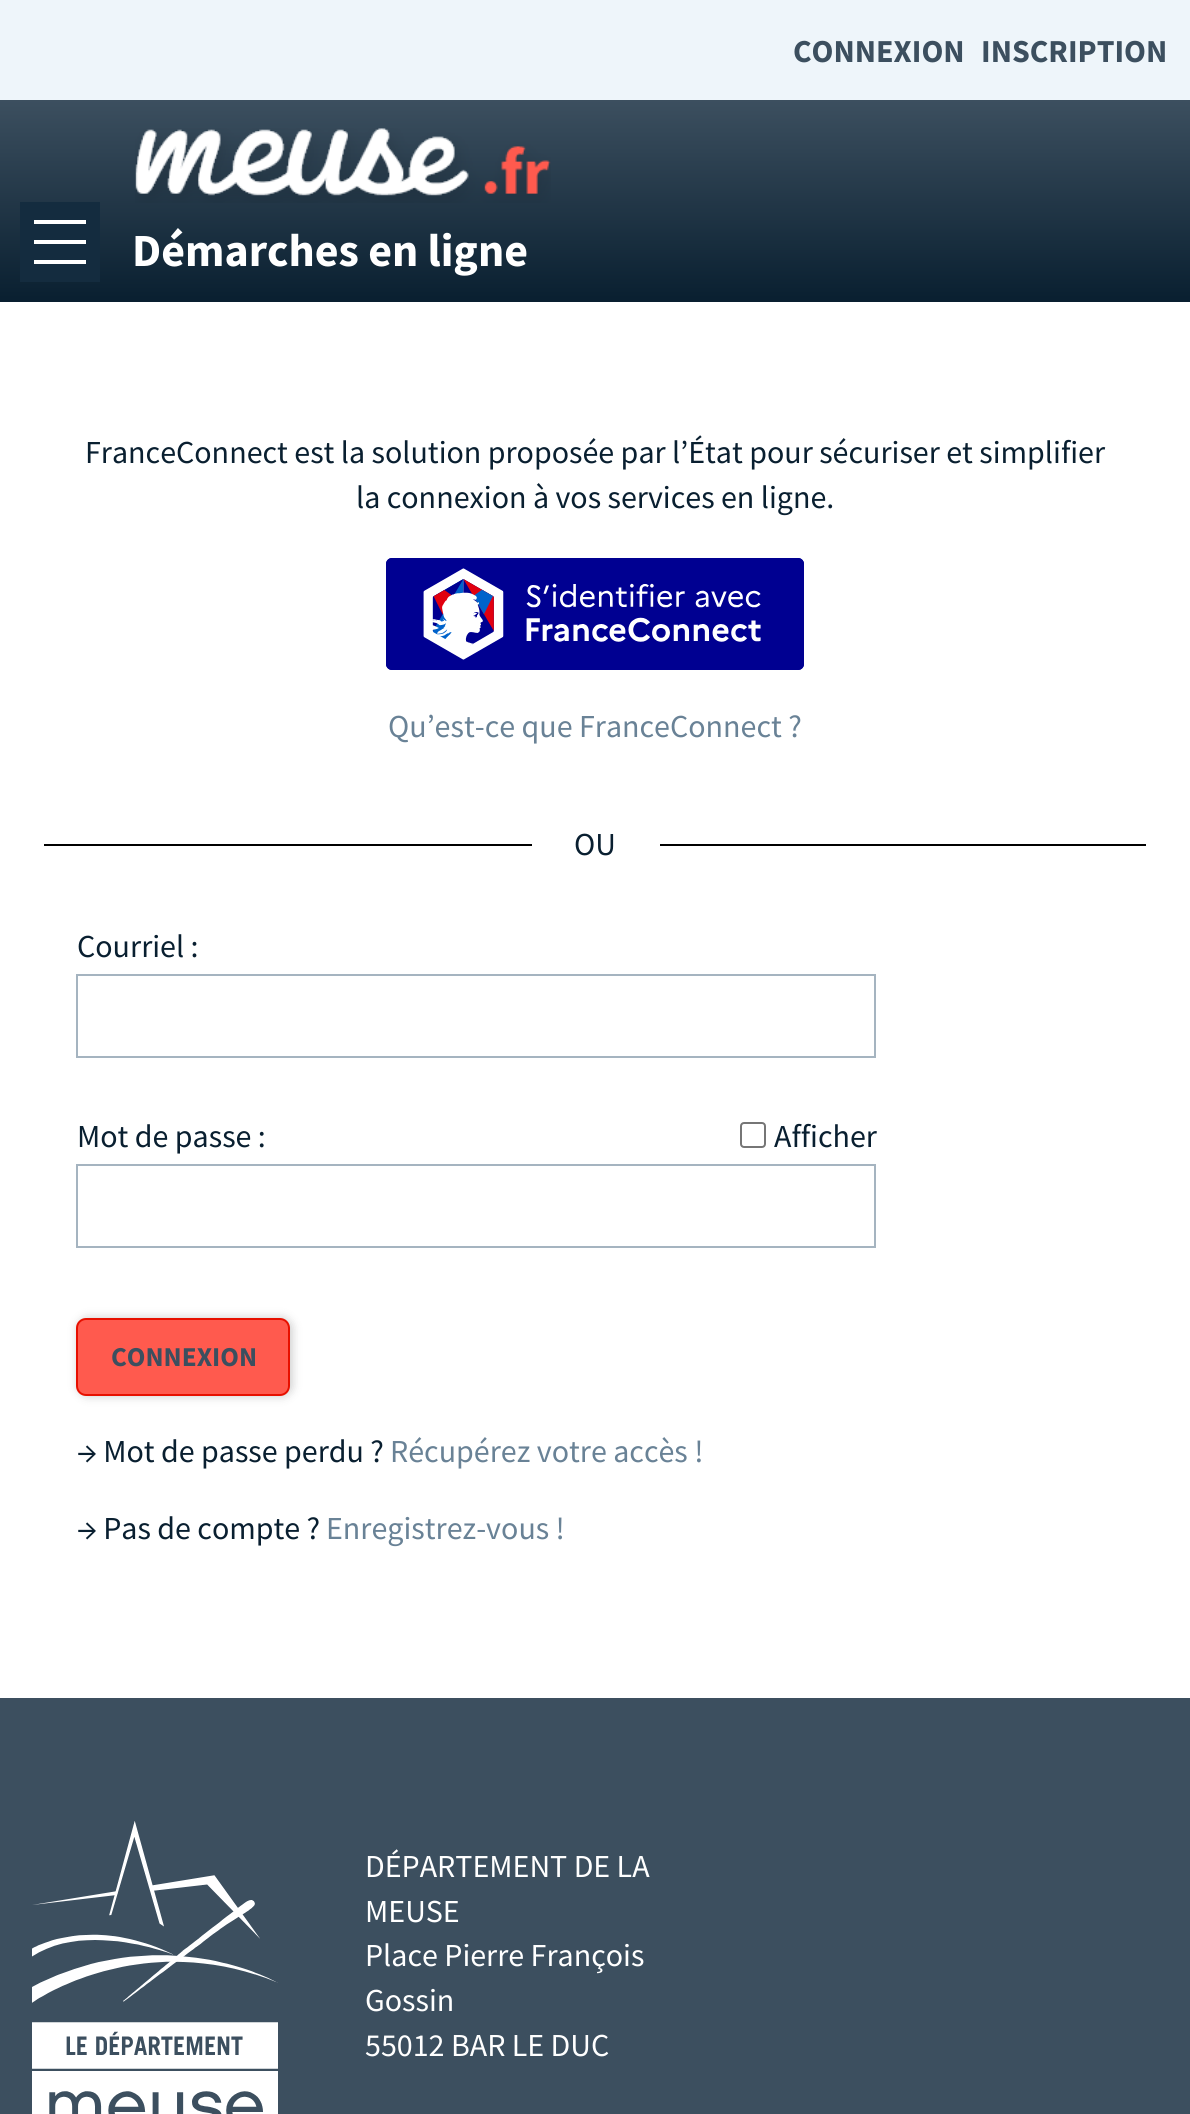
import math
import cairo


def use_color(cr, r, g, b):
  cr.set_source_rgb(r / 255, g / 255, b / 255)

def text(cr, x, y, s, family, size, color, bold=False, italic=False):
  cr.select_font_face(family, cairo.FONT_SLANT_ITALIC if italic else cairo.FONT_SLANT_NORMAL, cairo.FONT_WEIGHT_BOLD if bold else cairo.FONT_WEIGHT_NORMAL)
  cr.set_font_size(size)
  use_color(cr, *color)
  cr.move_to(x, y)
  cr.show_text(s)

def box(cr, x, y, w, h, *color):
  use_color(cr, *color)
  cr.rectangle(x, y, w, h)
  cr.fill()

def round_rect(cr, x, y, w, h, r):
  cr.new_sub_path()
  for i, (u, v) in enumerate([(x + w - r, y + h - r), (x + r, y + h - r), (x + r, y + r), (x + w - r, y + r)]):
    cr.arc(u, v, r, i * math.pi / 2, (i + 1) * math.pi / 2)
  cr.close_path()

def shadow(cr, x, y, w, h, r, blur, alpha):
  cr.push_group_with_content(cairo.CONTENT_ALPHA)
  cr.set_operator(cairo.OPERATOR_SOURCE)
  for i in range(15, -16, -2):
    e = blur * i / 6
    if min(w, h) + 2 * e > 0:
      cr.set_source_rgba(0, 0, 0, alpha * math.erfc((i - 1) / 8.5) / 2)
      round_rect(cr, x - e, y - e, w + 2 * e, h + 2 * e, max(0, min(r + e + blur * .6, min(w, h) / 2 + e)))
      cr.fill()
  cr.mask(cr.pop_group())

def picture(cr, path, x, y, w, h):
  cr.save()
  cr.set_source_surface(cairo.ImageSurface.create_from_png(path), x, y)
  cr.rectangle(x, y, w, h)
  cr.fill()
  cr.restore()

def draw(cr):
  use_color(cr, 255, 255, 255)
  cr.paint()
  gradient = cairo.LinearGradient(595, 100, 595, 302)
  gradient.add_color_stop_rgba(0, 0.235, 0.31, 0.373, 1)
  gradient.add_color_stop_rgba(1, 0.035, 0.122, 0.188, 1)
  cr.set_source(gradient)
  cr.rectangle(0, 100, 1190, 202)
  cr.fill()
  box(cr, 20, 202, 80, 80, 20, 44, 63)
  box(cr, 34, 220, 52, 4, 255, 255, 255)
  box(cr, 34, 240, 52, 4, 255, 255, 255)
  box(cr, 34, 260, 52, 4, 255, 255, 255)
  box(cr, 0, 0, 1190, 100, 238, 245, 250)
  picture(cr, "img_01.png", 135, 128, 416, 75)
  use_color(cr, 0, 0, 145)
  round_rect(cr, 386, 558, 418, 112, 6)
  cr.fill()
  picture(cr, "img_02.png", 423, 568, 338, 92)
  round_rect(cr, 387, 559, 416, 110, 5)
  cr.stroke()
  box(cr, 44, 844, 488, 2, 0, 0, 0)
  box(cr, 660, 844, 486, 2, 0, 0, 0)
  cr.rectangle(77, 975, 798, 82)
  use_color(cr, 165, 180, 192)
  cr.stroke()
  round_rect(cr, 741, 1123, 24, 24, 3)
  use_color(cr, 118, 118, 118)
  cr.stroke()
  cr.rectangle(77, 1165, 798, 82)
  use_color(cr, 165, 180, 192)
  cr.stroke()
  use_color(cr, 0, 0, 0)
  shadow(cr, 78, 1318, 214, 78, 10, 5, 0.21)
  use_color(cr, 255, 90, 78)
  round_rect(cr, 77, 1319, 212, 76, 9)
  cr.fill_preserve()
  use_color(cr, 231, 16, 0)
  cr.stroke()
  box(cr, 0, 1698, 1190, 416, 60, 79, 95)
  picture(cr, "img_03.png", 32, 1821, 246, 293)
  text(cr, 793, 62, "CONNEXION", "Source Sans Pro", 32, (60, 79, 95), bold=True)
  text(cr, 981, 62, "INSCRIPTION", "Source Sans Pro", 32, (60, 79, 95), bold=True)
  text(cr, 132, 266, "Démarches en ligne", "Source Sans Pro", 46, (255, 255, 255), bold=True)
  text(cr, 85, 463, "FranceConnect est la solution proposée par l’État pour sécuriser et simplifier", "Source Sans Pro", 32, (9, 31, 48))
  text(cr, 356, 508, "la connexion à vos services en ligne.", "Source Sans Pro", 32, (9, 31, 48))
  text(cr, 388, 737, "Qu’est-ce que FranceConnect ?", "Source Sans Pro", 32, (105, 130, 150))
  text(cr, 574, 855, "OU", "Source Sans Pro", 32, (9, 31, 48))
  text(cr, 77, 957, "Courriel :", "Source Sans Pro", 32, (9, 31, 48))
  text(cr, 77, 1147, "Mot de passe :", "Source Sans Pro", 32, (9, 31, 48))
  text(cr, 774, 1147, "Afficher", "Source Sans Pro", 32, (9, 31, 48))
  text(cr, 111, 1366, "CONNEXION", "Source Sans Pro", 27.25, (60, 79, 95), bold=True)
  text(cr, 77, 1462, "→ Mot de passe perdu ?", "Source Sans Pro", 32, (9, 31, 48))
  text(cr, 390, 1462, "Récupérez votre accès !", "Source Sans Pro", 32, (105, 130, 150))
  text(cr, 77, 1539, "→ Pas de compte ?", "Source Sans Pro", 32, (9, 31, 48))
  text(cr, 326, 1539, "Enregistrez-vous !", "Source Sans Pro", 32, (105, 130, 150))
  text(cr, 365, 1877, "DÉPARTEMENT DE LA", "Source Sans Pro", 32, (255, 255, 255))
  text(cr, 365, 1922, "MEUSE", "Source Sans Pro", 32, (255, 255, 255))
  text(cr, 365, 1966, "Place Pierre François", "Source Sans Pro", 32, (255, 255, 255))
  text(cr, 365, 2011, "Gossin", "Source Sans Pro", 32, (255, 255, 255))
  text(cr, 365, 2056, "55012 BAR LE DUC", "Source Sans Pro", 32, (255, 255, 255))


surface = cairo.ImageSurface(cairo.FORMAT_RGB24, 1190, 2114)
cr = cairo.Context(surface)
options = cairo.FontOptions()
options.set_hint_metrics(cairo.HINT_METRICS_OFF)
options.set_hint_style(cairo.HINT_STYLE_NONE)
cr.set_font_options(options)
cr.set_miter_limit(4)
draw(cr)
surface.write_to_png("out.png")
